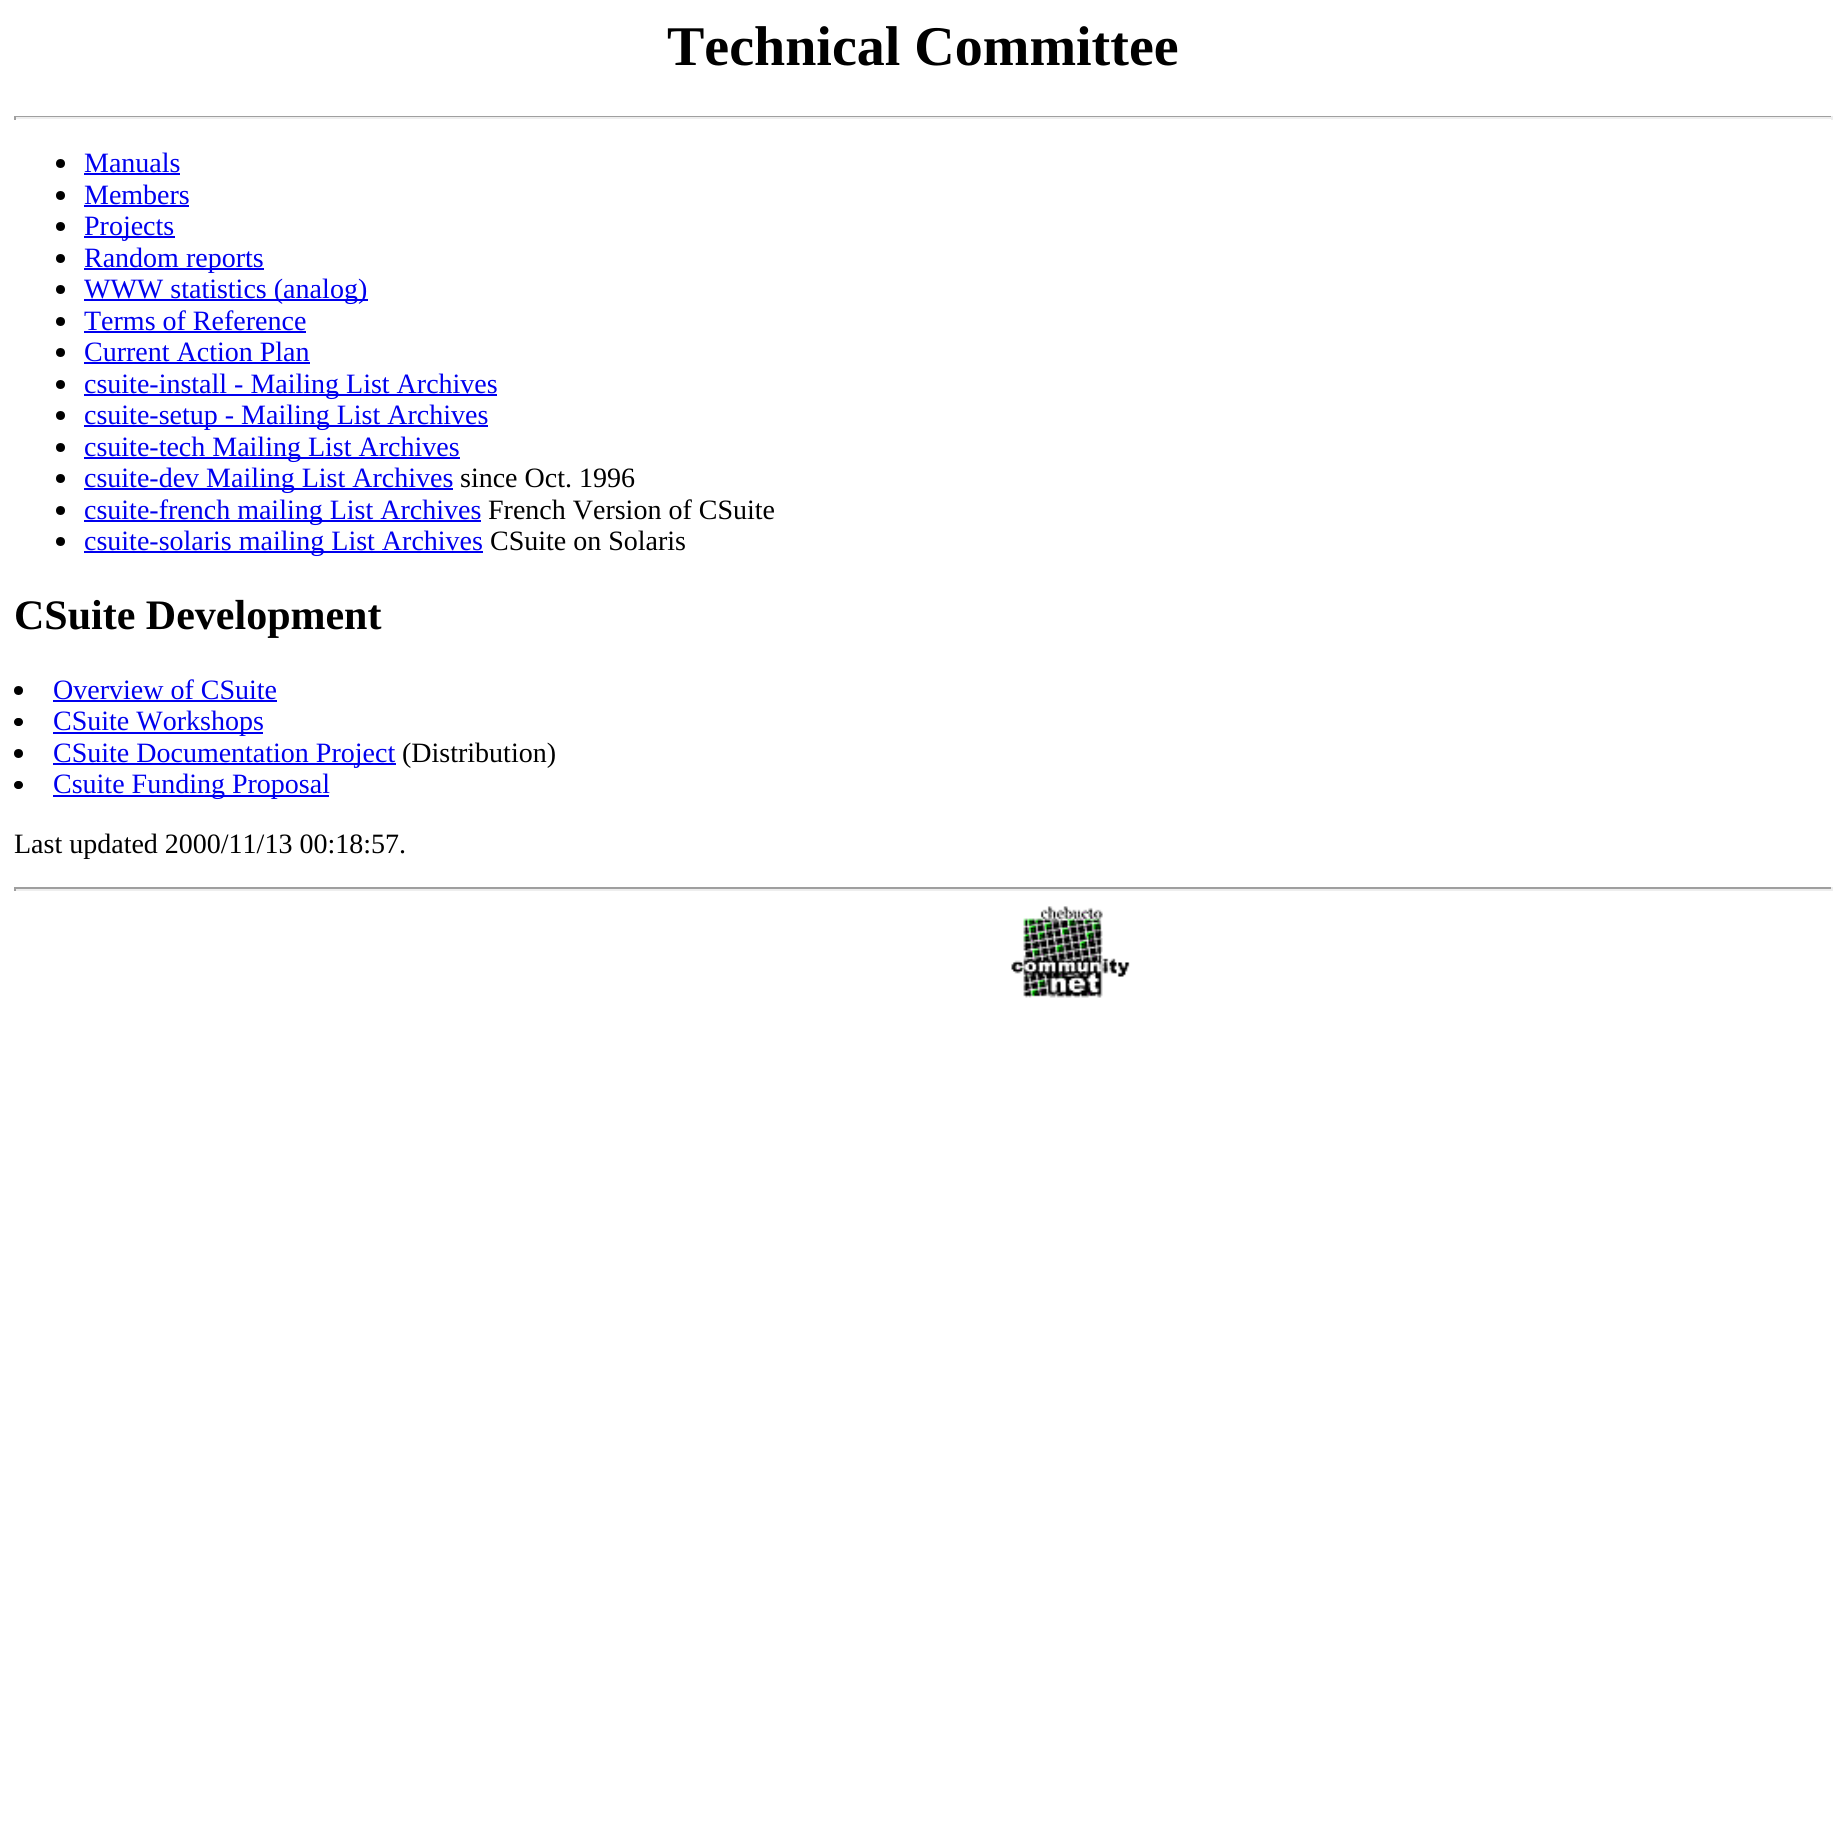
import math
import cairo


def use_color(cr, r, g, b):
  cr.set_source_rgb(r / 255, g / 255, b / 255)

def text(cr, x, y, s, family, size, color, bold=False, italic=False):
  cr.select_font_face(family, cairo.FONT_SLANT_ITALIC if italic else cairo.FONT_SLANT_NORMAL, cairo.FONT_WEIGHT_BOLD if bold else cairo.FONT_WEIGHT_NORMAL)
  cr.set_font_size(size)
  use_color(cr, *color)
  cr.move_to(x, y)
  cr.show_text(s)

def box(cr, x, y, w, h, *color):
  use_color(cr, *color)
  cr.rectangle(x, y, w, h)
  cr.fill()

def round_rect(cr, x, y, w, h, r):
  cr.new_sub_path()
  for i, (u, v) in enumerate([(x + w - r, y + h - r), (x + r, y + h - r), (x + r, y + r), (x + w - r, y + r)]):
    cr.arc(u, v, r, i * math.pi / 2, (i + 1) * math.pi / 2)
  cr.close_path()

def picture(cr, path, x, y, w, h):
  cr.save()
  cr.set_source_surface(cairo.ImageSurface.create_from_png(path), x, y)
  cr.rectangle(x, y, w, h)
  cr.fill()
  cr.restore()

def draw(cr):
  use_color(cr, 255, 255, 255)
  cr.paint()
  box(cr, 14, 116, 1818, 1, 159, 159, 159)
  box(cr, 1831, 116, 2, 4, 238, 238, 238)
  box(cr, 14, 117, 1818, 2, 238, 238, 238)
  box(cr, 14, 116, 2, 4, 159, 159, 159)
  use_color(cr, 0, 0, 0)
  cr.arc(60.5, 163.5, 4.5, 0, 2 * math.pi)
  cr.fill()
  box(cr, 84, 173, 96, 2, 0, 0, 238)
  use_color(cr, 0, 0, 0)
  cr.arc(60.5, 195.5, 4.5, 0, 2 * math.pi)
  cr.fill()
  box(cr, 84, 205, 105, 2, 0, 0, 238)
  use_color(cr, 0, 0, 0)
  cr.arc(60.5, 226.5, 4.5, 0, 2 * math.pi)
  cr.fill()
  box(cr, 84, 236, 91, 2, 0, 0, 238)
  use_color(cr, 0, 0, 0)
  cr.arc(60.5, 258.5, 4.5, 0, 2 * math.pi)
  cr.fill()
  box(cr, 84, 268, 180, 2, 0, 0, 238)
  use_color(cr, 0, 0, 0)
  cr.arc(60.5, 289.5, 4.5, 0, 2 * math.pi)
  cr.fill()
  box(cr, 84, 299, 245, 2, 0, 0, 238)
  box(cr, 329, 299, 39, 2, 0, 0, 238)
  use_color(cr, 0, 0, 0)
  cr.arc(60.5, 321.5, 4.5, 0, 2 * math.pi)
  cr.fill()
  box(cr, 84, 331, 222, 2, 0, 0, 238)
  use_color(cr, 0, 0, 0)
  cr.arc(60.5, 352.5, 4.5, 0, 2 * math.pi)
  cr.fill()
  box(cr, 84, 362, 226, 2, 0, 0, 238)
  use_color(cr, 0, 0, 0)
  cr.arc(60.5, 384.5, 4.5, 0, 2 * math.pi)
  cr.fill()
  box(cr, 84, 394, 413, 2, 0, 0, 238)
  use_color(cr, 0, 0, 0)
  cr.arc(60.5, 415.5, 4.5, 0, 2 * math.pi)
  cr.fill()
  box(cr, 84, 425, 404, 2, 0, 0, 238)
  use_color(cr, 0, 0, 0)
  cr.arc(60.5, 447.5, 4.5, 0, 2 * math.pi)
  cr.fill()
  box(cr, 84, 457, 376, 2, 0, 0, 238)
  use_color(cr, 0, 0, 0)
  cr.arc(60.5, 478.5, 4.5, 0, 2 * math.pi)
  cr.fill()
  box(cr, 84, 488, 369, 2, 0, 0, 238)
  use_color(cr, 0, 0, 0)
  cr.arc(60.5, 510.5, 4.5, 0, 2 * math.pi)
  cr.fill()
  box(cr, 84, 520, 397, 2, 0, 0, 238)
  use_color(cr, 0, 0, 0)
  cr.arc(60.5, 541.5, 4.5, 0, 2 * math.pi)
  cr.fill()
  box(cr, 84, 551, 399, 2, 0, 0, 238)
  use_color(cr, 0, 0, 0)
  cr.arc(18.5, 690.5, 4.5, 0, 2 * math.pi)
  cr.fill()
  box(cr, 53, 700, 224, 2, 0, 0, 238)
  use_color(cr, 0, 0, 0)
  round_rect(cr, 14, 718, 9, 8, 4)
  cr.fill()
  box(cr, 53, 732, 210, 2, 0, 0, 238)
  use_color(cr, 0, 0, 0)
  cr.arc(18.5, 753.5, 4.5, 0, 2 * math.pi)
  cr.fill()
  box(cr, 53, 763, 343, 2, 0, 0, 238)
  use_color(cr, 0, 0, 0)
  round_rect(cr, 14, 781, 9, 8, 4)
  cr.fill()
  box(cr, 53, 795, 276, 2, 0, 0, 238)
  box(cr, 14, 887, 1818, 2, 159, 159, 159)
  box(cr, 1831, 887, 2, 4, 238, 238, 238)
  box(cr, 14, 889, 1818, 2, 238, 238, 238)
  box(cr, 14, 887, 2, 4, 159, 159, 159)
  picture(cr, "img_01.png", 1011, 906, 119, 92)
  text(cr, 667, 65, "Technical Committee", "Liberation Serif", 56, (0, 0, 0), bold=True)
  text(cr, 84, 172, "Manuals", "Liberation Serif", 28, (0, 0, 238))
  text(cr, 84, 204, "Members", "Liberation Serif", 28, (0, 0, 238))
  text(cr, 84, 235, "Projects", "Liberation Serif", 28, (0, 0, 238))
  text(cr, 84, 267, "Random reports", "Liberation Serif", 28, (0, 0, 238))
  text(cr, 84, 298, "WWW statistics (anal", "Liberation Serif", 28, (0, 0, 238))
  text(cr, 330, 298, "og)", "Liberation Serif", 28, (0, 0, 238))
  text(cr, 84, 330, "Terms of Reference", "Liberation Serif", 28, (0, 0, 238))
  text(cr, 84, 361, "Current Action Plan", "Liberation Serif", 28, (0, 0, 238))
  text(cr, 84, 393, "csuite-install - Mailing List Archives", "Liberation Serif", 28, (0, 0, 238))
  text(cr, 84, 424, "csuite-setup - Mailing List Archives", "Liberation Serif", 28, (0, 0, 238))
  text(cr, 84, 456, "csuite-tech Mailing List Archives", "Liberation Serif", 28, (0, 0, 238))
  text(cr, 84, 487, "csuite-dev Mailing List Archives", "Liberation Serif", 28, (0, 0, 238))
  text(cr, 460, 487, "since Oct. 1996", "Liberation Serif", 28, (0, 0, 0))
  text(cr, 84, 519, "csuite-french mailing List Archives", "Liberation Serif", 28, (0, 0, 238))
  text(cr, 488, 519, "French Version of CSuite", "Liberation Serif", 28, (0, 0, 0))
  text(cr, 84, 550, "csuite-solaris mailing List Archives", "Liberation Serif", 28, (0, 0, 238))
  text(cr, 490, 550, "CSuite on Solaris", "Liberation Serif", 28, (0, 0, 0))
  text(cr, 14, 629, "CSuite Development", "Liberation Serif", 42, (0, 0, 0), bold=True)
  text(cr, 53, 699, "Overview of CSuite", "Liberation Serif", 28, (0, 0, 238))
  text(cr, 53, 730, "CSuite Workshops", "Liberation Serif", 28, (0, 0, 238))
  text(cr, 53, 762, "CSuite Documentation Project", "Liberation Serif", 28, (0, 0, 238))
  text(cr, 402, 762, "(Distribution)", "Liberation Serif", 28, (0, 0, 0))
  text(cr, 53, 793, "Csuite Funding Proposal", "Liberation Serif", 28, (0, 0, 238))
  text(cr, 14, 853, "Last updated 2000/11/13 00:18:57.", "Liberation Serif", 28, (0, 0, 0))


surface = cairo.ImageSurface(cairo.FORMAT_RGB24, 1845, 1832)
cr = cairo.Context(surface)
options = cairo.FontOptions()
options.set_hint_metrics(cairo.HINT_METRICS_OFF)
options.set_hint_style(cairo.HINT_STYLE_NONE)
cr.set_font_options(options)
cr.set_miter_limit(4)
draw(cr)
surface.write_to_png("out.png")
